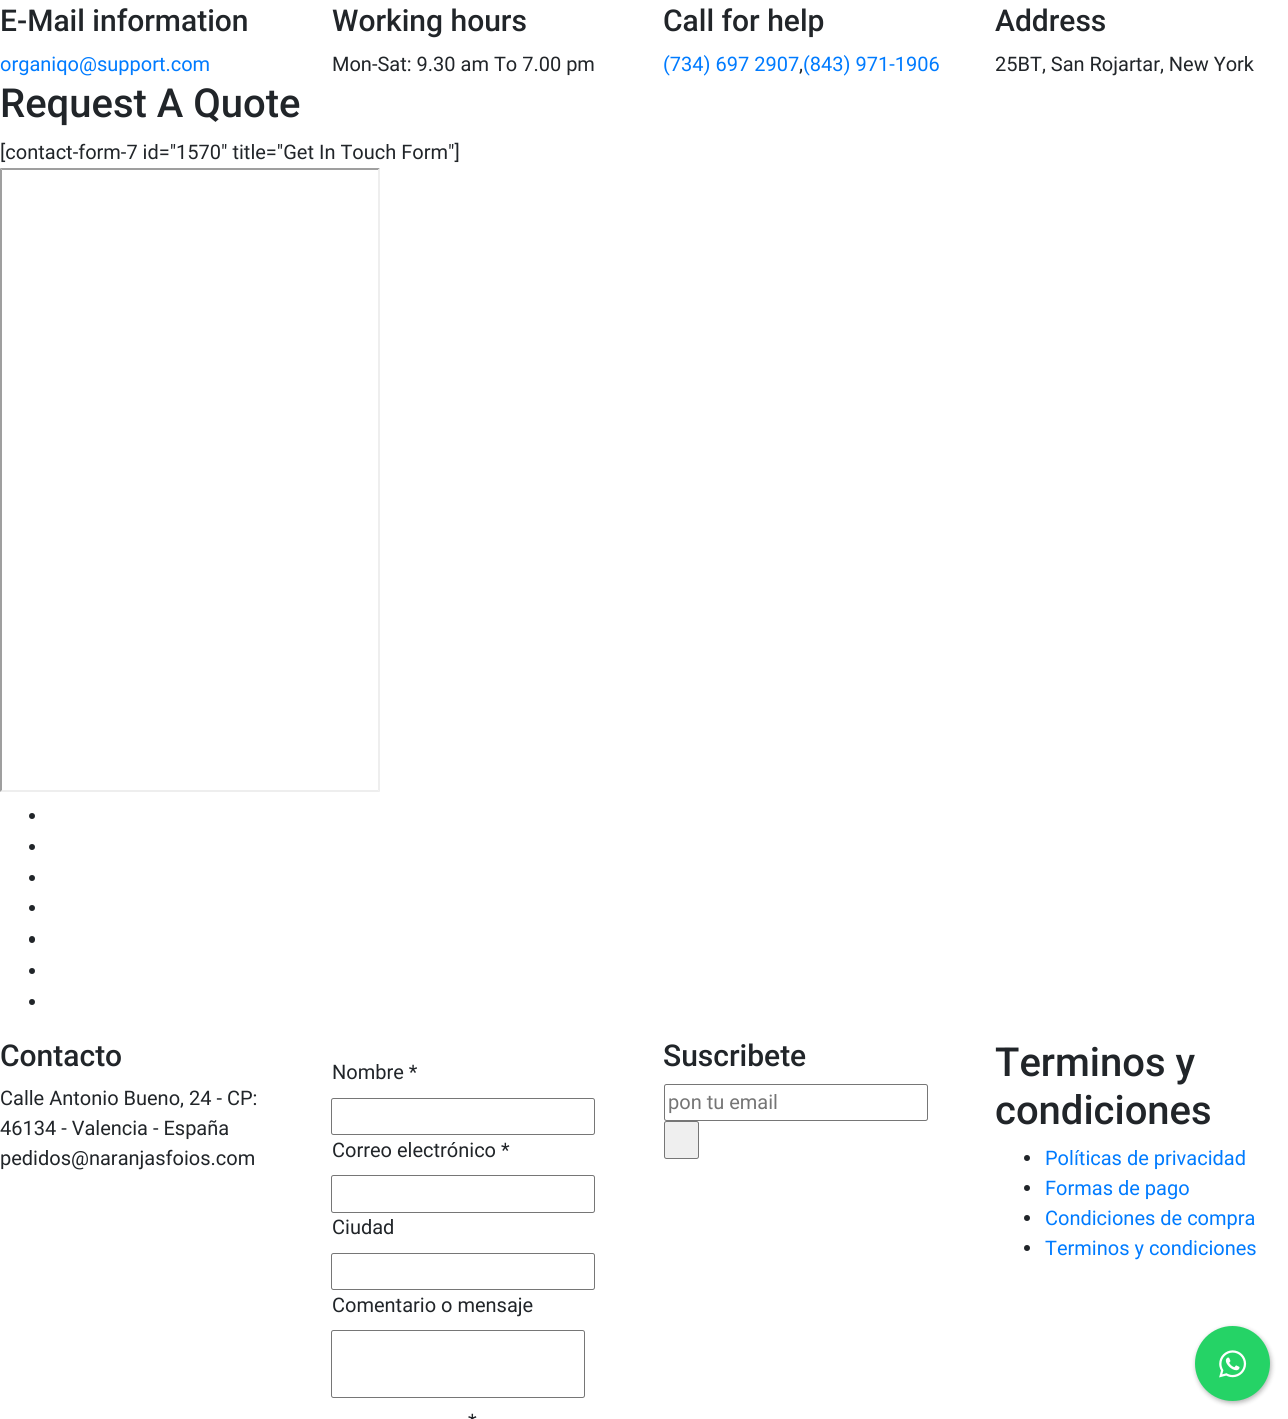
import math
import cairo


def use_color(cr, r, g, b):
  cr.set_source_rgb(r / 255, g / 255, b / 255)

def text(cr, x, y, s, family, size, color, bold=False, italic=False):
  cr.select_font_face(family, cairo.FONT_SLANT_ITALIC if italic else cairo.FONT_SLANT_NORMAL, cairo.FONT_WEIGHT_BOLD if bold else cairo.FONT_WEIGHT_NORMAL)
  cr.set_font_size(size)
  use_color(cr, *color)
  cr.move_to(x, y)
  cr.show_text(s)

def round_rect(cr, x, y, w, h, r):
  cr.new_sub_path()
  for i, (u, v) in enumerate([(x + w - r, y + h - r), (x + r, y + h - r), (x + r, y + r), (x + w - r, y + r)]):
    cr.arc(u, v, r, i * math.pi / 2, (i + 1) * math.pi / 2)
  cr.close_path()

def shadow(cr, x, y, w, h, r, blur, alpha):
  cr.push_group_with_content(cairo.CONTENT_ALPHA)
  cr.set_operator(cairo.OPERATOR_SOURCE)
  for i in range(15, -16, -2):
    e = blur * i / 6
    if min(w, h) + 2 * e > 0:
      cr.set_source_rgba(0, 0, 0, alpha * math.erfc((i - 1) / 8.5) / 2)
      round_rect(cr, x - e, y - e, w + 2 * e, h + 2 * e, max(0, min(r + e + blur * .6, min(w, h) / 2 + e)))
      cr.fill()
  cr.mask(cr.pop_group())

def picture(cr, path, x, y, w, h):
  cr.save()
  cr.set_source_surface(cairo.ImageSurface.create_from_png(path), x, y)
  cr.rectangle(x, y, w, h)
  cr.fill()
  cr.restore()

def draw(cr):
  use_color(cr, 255, 255, 255)
  cr.paint()
  use_color(cr, 159, 159, 159)
  cr.new_path()
  cr.move_to(0, 168)
  cr.line_to(380, 168)
  cr.line_to(378, 170)
  cr.line_to(2, 170)
  cr.close_path()
  cr.fill()
  use_color(cr, 238, 238, 238)
  cr.new_path()
  cr.move_to(380, 168)
  cr.line_to(380, 792)
  cr.line_to(378, 790)
  cr.line_to(378, 170)
  cr.close_path()
  cr.fill()
  cr.new_path()
  cr.move_to(380, 792)
  cr.line_to(0, 792)
  cr.line_to(2, 790)
  cr.line_to(378, 790)
  cr.close_path()
  cr.fill()
  use_color(cr, 159, 159, 159)
  cr.new_path()
  cr.move_to(0, 792)
  cr.line_to(0, 168)
  cr.line_to(2, 170)
  cr.line_to(2, 790)
  cr.close_path()
  cr.fill()
  use_color(cr, 33, 37, 41)
  cr.arc(32, 816, 3, 0, 2 * math.pi)
  cr.fill()
  cr.arc(32, 847, 3, 0, 2 * math.pi)
  cr.fill()
  cr.arc(32, 878, 3, 0, 2 * math.pi)
  cr.fill()
  cr.arc(32, 908, 3, 0, 2 * math.pi)
  cr.fill()
  round_rect(cr, 29, 936, 6, 7, 3)
  cr.fill()
  cr.arc(32, 971, 3, 0, 2 * math.pi)
  cr.fill()
  cr.arc(32, 1002, 3, 0, 2 * math.pi)
  cr.fill()
  round_rect(cr, 331.5, 1098.5, 263, 36, 2)
  use_color(cr, 118, 118, 118)
  cr.set_line_width(1)
  cr.stroke()
  round_rect(cr, 331.5, 1175.5, 263, 37, 2)
  cr.stroke()
  round_rect(cr, 331.5, 1253.5, 263, 36, 2)
  cr.stroke()
  round_rect(cr, 331.5, 1330.5, 253, 67, 2)
  cr.stroke()
  round_rect(cr, 664.5, 1084.5, 263, 36, 2)
  cr.stroke()
  use_color(cr, 239, 239, 239)
  round_rect(cr, 664.5, 1121.5, 34, 37, 2)
  cr.fill_preserve()
  use_color(cr, 118, 118, 118)
  cr.stroke()
  use_color(cr, 33, 37, 41)
  cr.arc(1027, 1158, 3, 0, 2 * math.pi)
  cr.fill()
  cr.arc(1027, 1188, 3, 0, 2 * math.pi)
  cr.fill()
  cr.arc(1027, 1218, 3, 0, 2 * math.pi)
  cr.fill()
  cr.arc(1027, 1248, 3, 0, 2 * math.pi)
  cr.fill()
  use_color(cr, 0, 0, 0)
  shadow(cr, 1196, 1328, 75, 75, 37.5, 2.5, 0.3)
  use_color(cr, 37, 211, 102)
  cr.arc(1232.5, 1363.5, 37.5, 0, 2 * math.pi)
  cr.fill()
  picture(cr, "img_01.png", 1219, 1350, 28, 28)
  text(cr, 0, 31, "E-Mail information", "Roboto Medium", 30, (33, 37, 41))
  text(cr, 0, 71, "organiqo@support.com", "Roboto", 20, (0, 123, 255))
  text(cr, 332, 31, "Working hours", "Roboto Medium", 30, (33, 37, 41))
  text(cr, 332, 71, "Mon-Sat: 9.30 am To 7.00 pm", "Roboto", 20, (33, 37, 41))
  text(cr, 663, 31, "Call for help", "Roboto Medium", 30, (33, 37, 41))
  text(cr, 663, 71, "(734) 697 2907", "Roboto", 20, (0, 123, 255))
  text(cr, 799, 71, ",", "Roboto", 20, (33, 37, 41))
  text(cr, 803, 71, "(843) 971-1906", "Roboto", 20, (0, 123, 255))
  text(cr, 995, 31, "Address", "Roboto Medium", 30, (33, 37, 41))
  text(cr, 995, 71, "25BT, San Rojartar, New York", "Roboto", 20, (33, 37, 41))
  text(cr, 0, 117, "Request A Quote", "Roboto Medium", 40, (33, 37, 41))
  text(cr, 0, 159, "[contact-form-7 id=\"1570\" title=\"Get In Touch Form\"]", "Roboto", 20, (33, 37, 41))
  text(cr, 0, 1066, "Contacto", "Roboto Medium", 30, (33, 37, 41))
  text(cr, 0, 1105, "Calle Antonio Bueno, 24 - CP:", "Roboto", 20, (33, 37, 41))
  text(cr, 0, 1135, "46134 - Valencia - España", "Roboto", 20, (33, 37, 41))
  text(cr, 0, 1165, "pedidos@naranjasfoios.com", "Roboto", 20, (33, 37, 41))
  text(cr, 332, 1079, "Nombre *", "Roboto", 20, (33, 37, 41))
  text(cr, 332, 1157, "Correo electrónico *", "Roboto", 20, (33, 37, 41))
  text(cr, 332, 1234, "Ciudad", "Roboto", 20, (33, 37, 41))
  text(cr, 332, 1312, "Comentario o mensaje", "Roboto", 20, (33, 37, 41))
  text(cr, 468, 1428, "*", "Roboto", 20, (33, 37, 41))
  text(cr, 663, 1066, "Suscribete", "Roboto Medium", 30, (33, 37, 41))
  text(cr, 668, 1109, "pon tu email", "Roboto", 20, (117, 117, 117))
  text(cr, 995, 1076, "Terminos y", "Roboto Medium", 40, (33, 37, 41))
  text(cr, 995, 1124, "condiciones", "Roboto Medium", 40, (33, 37, 41))
  text(cr, 1045, 1165, "Políticas de privacidad", "Roboto", 20, (0, 123, 255))
  text(cr, 1045, 1195, "Formas de pago", "Roboto", 20, (0, 123, 255))
  text(cr, 1045, 1225, "Condiciones de compra", "Roboto", 20, (0, 123, 255))
  text(cr, 1045, 1255, "Terminos y condiciones", "Roboto", 20, (0, 123, 255))


surface = cairo.ImageSurface(cairo.FORMAT_RGB24, 1288, 1419)
cr = cairo.Context(surface)
options = cairo.FontOptions()
options.set_hint_metrics(cairo.HINT_METRICS_OFF)
options.set_hint_style(cairo.HINT_STYLE_NONE)
cr.set_font_options(options)
cr.set_miter_limit(4)
draw(cr)
surface.write_to_png("out.png")
